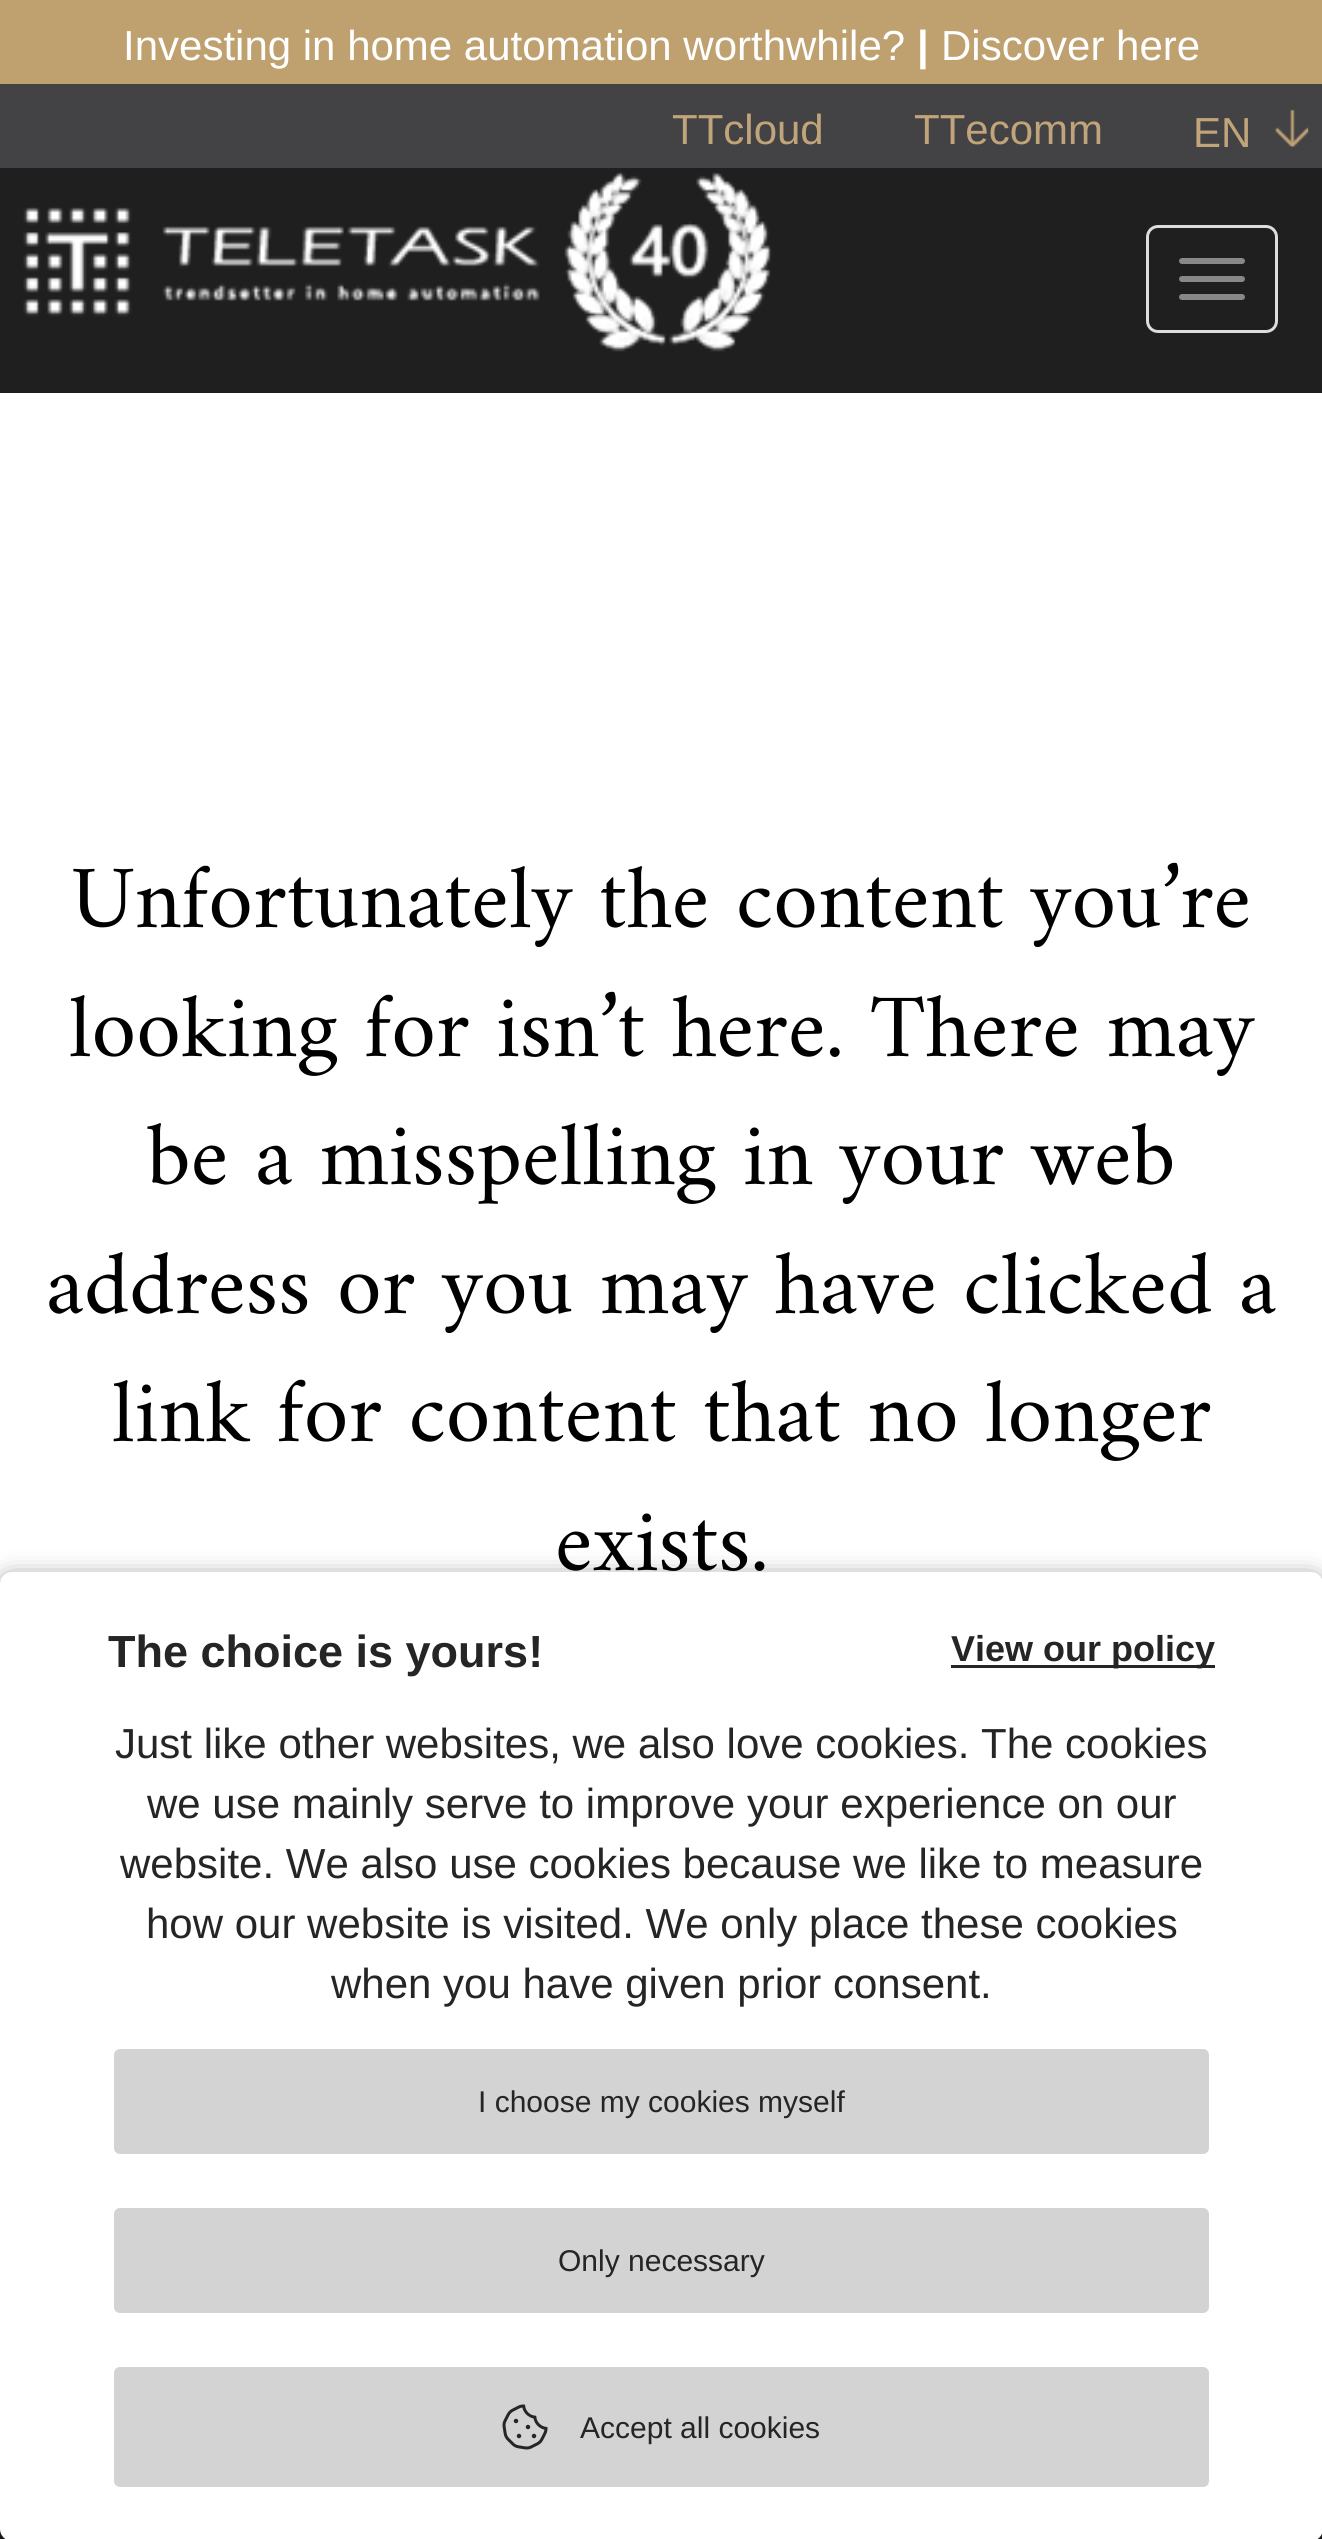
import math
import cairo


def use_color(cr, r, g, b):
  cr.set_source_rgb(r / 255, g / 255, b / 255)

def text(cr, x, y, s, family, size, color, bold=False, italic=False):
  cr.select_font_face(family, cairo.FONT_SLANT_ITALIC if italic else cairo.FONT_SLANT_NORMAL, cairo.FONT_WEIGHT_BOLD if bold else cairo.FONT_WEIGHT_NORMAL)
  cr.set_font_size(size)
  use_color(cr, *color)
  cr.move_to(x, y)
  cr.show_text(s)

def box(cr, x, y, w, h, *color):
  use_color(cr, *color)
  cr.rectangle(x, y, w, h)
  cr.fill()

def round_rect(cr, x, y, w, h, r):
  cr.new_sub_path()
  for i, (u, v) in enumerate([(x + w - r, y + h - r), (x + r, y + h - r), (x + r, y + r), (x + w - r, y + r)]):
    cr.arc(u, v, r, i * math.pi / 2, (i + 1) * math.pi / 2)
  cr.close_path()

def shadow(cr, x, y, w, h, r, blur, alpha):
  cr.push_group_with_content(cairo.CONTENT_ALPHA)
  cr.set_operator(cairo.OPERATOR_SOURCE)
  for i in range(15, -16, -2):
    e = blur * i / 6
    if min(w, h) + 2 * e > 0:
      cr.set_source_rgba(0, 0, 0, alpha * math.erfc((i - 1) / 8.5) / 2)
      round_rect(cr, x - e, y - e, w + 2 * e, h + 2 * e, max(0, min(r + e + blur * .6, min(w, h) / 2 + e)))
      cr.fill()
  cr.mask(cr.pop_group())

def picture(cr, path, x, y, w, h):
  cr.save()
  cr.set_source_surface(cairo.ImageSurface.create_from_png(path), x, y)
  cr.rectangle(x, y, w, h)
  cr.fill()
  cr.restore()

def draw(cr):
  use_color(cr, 255, 255, 255)
  cr.paint()
  box(cr, 0, 0, 1322, 84, 191, 161, 112)
  box(cr, 0, 84, 1322, 84, 67, 67, 69)
  picture(cr, "img_01.png", 1275, 109, 34, 38)
  box(cr, 0, 168, 1322, 225, 31, 31, 31)
  picture(cr, "img_02.png", 23, 171, 749, 181)
  round_rect(cr, 1147.5, 226.5, 129, 105, 10.5)
  use_color(cr, 221, 221, 221)
  cr.set_line_width(3)
  cr.stroke()
  use_color(cr, 136, 136, 136)
  round_rect(cr, 1179, 258, 66, 6, 3)
  cr.fill()
  round_rect(cr, 1179, 276, 66, 6, 3)
  cr.fill()
  round_rect(cr, 1179, 294, 66, 6, 3)
  cr.fill()
  box(cr, 0, 2529, 1322, 10, 31, 31, 31)
  use_color(cr, 0, 0, 0)
  shadow(cr, 0, 1578, 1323, 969, 12, 12, 0.5)
  use_color(cr, 255, 255, 255)
  round_rect(cr, 0, 1572, 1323, 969, 12)
  cr.fill()
  box(cr, 951, 1665, 264, 3, 37, 37, 37)
  use_color(cr, 211, 211, 211)
  round_rect(cr, 111, 2046, 1101, 111, 9)
  cr.fill_preserve()
  use_color(cr, 255, 255, 255)
  cr.set_line_width(6)
  cr.stroke()
  use_color(cr, 211, 211, 211)
  round_rect(cr, 111, 2205, 1101, 111, 9)
  cr.fill_preserve()
  use_color(cr, 255, 255, 255)
  cr.stroke()
  use_color(cr, 211, 211, 211)
  round_rect(cr, 111, 2364, 1101, 126, 9)
  cr.fill_preserve()
  use_color(cr, 255, 255, 255)
  cr.stroke()
  picture(cr, "img_03.png", 502, 2404, 46, 46)
  text(cr, 123, 60, "Investing in home automation worthwhile?", "Liberation Sans", 42, (255, 255, 255))
  text(cr, 917, 60, "|", "Liberation Sans", 42, (255, 255, 255), bold=True)
  text(cr, 941, 60, "Discover here", "Liberation Sans", 42, (255, 255, 255))
  text(cr, 672, 144, "TTcloud", "Liberation Sans", 42, (193, 164, 122))
  text(cr, 914, 144, "TTecomm", "Liberation Sans", 42, (193, 164, 122))
  text(cr, 1193, 147, "EN", "Liberation Sans", 42, (193, 164, 122))
  text(cr, 71, 927, "Unfortunately the content you’re", "Amiri", 90, (0, 0, 0))
  text(cr, 69, 1056, "looking for isn’t here. There may", "Amiri", 90, (0, 0, 0))
  text(cr, 147, 1184, "be a misspelling in your web", "Amiri", 90, (0, 0, 0))
  text(cr, 46, 1313, "address or you may have clicked a", "Amiri", 90, (0, 0, 0))
  text(cr, 112, 1441, "link for content that no longer", "Amiri", 90, (0, 0, 0))
  text(cr, 555, 1570, "exists.", "Amiri", 90, (0, 0, 0))
  text(cr, 108, 1667, "The choice is yours!", "Liberation Sans", 45, (37, 37, 37), bold=True)
  text(cr, 951, 1661, "View our policy", "Liberation Sans", 36, (37, 37, 37), bold=True)
  text(cr, 115, 1758, "Just like other websites, we also love cookies. The cookies", "Liberation Sans", 42, (37, 37, 37))
  text(cr, 147, 1818, "we use mainly serve to improve your experience on our", "Liberation Sans", 42, (37, 37, 37))
  text(cr, 120, 1878, "website. We also use cookies because we like to measure", "Liberation Sans", 42, (37, 37, 37))
  text(cr, 146, 1938, "how our website is visited. We only place these cookies", "Liberation Sans", 42, (37, 37, 37))
  text(cr, 331, 1998, "when you have given prior consent.", "Liberation Sans", 42, (37, 37, 37))
  text(cr, 478, 2112, "I choose my cookies myself", "Liberation Sans", 30, (37, 37, 37))
  text(cr, 558, 2271, "Only necessary", "Liberation Sans", 30, (37, 37, 37))
  text(cr, 580, 2438, "Accept all cookies", "Liberation Sans", 30, (37, 37, 37))


surface = cairo.ImageSurface(cairo.FORMAT_RGB24, 1322, 2539)
cr = cairo.Context(surface)
options = cairo.FontOptions()
options.set_hint_metrics(cairo.HINT_METRICS_OFF)
options.set_hint_style(cairo.HINT_STYLE_NONE)
cr.set_font_options(options)
cr.set_miter_limit(4)
draw(cr)
surface.write_to_png("out.png")
